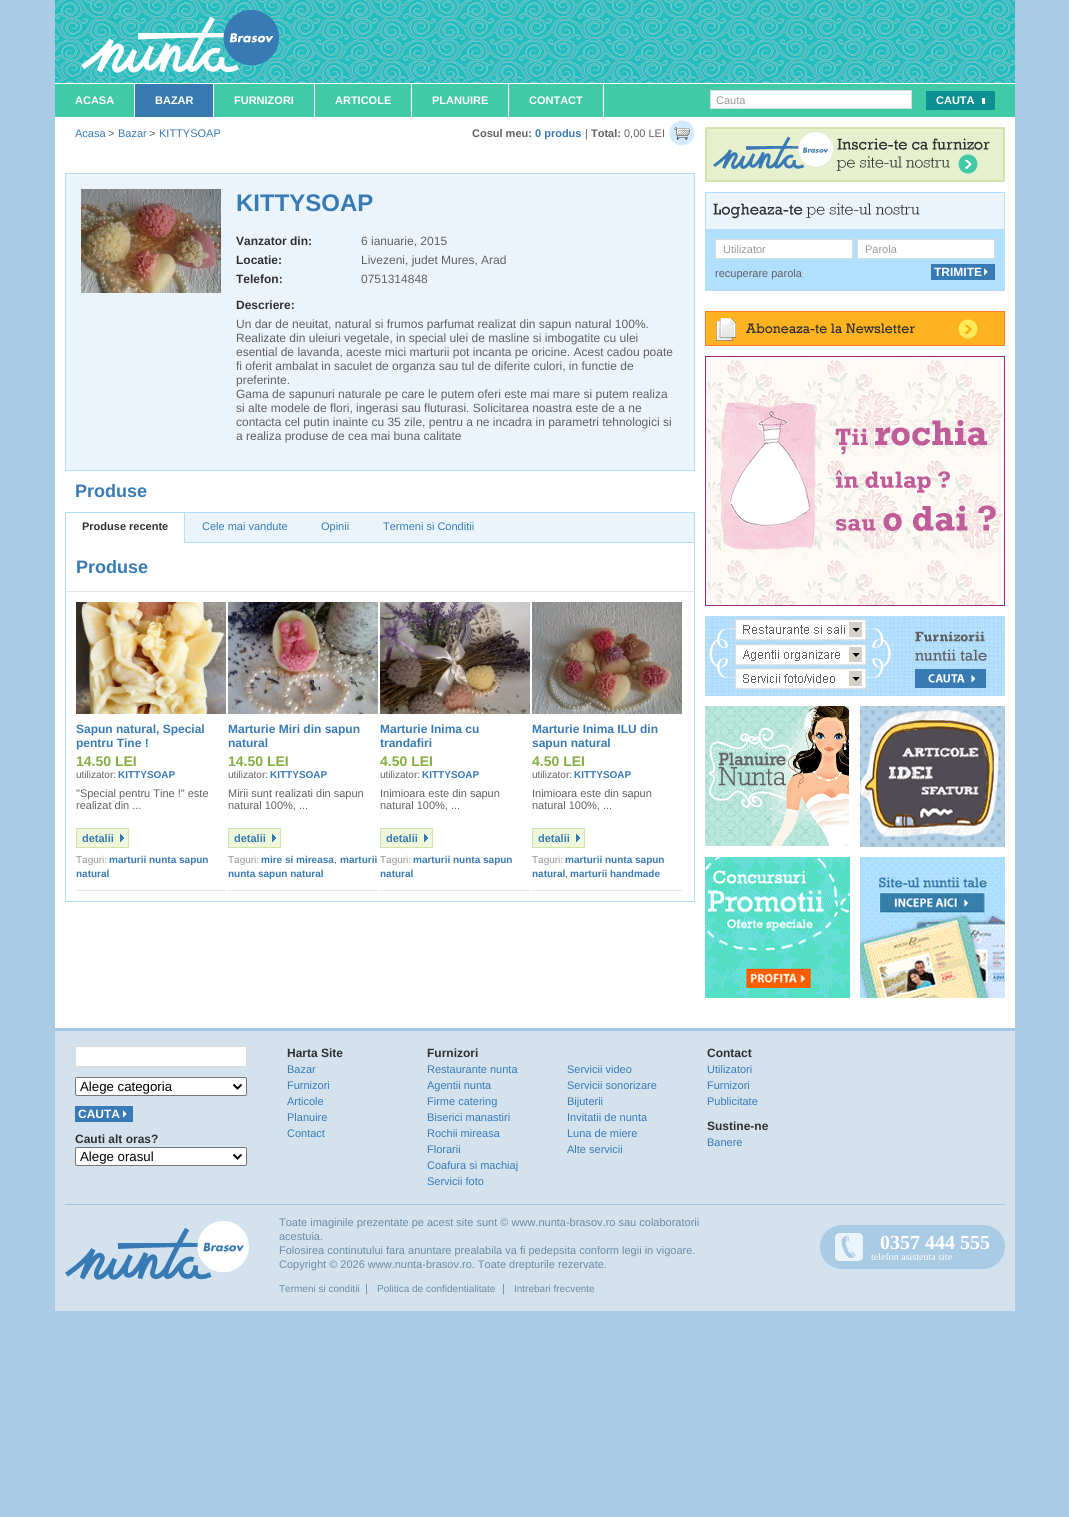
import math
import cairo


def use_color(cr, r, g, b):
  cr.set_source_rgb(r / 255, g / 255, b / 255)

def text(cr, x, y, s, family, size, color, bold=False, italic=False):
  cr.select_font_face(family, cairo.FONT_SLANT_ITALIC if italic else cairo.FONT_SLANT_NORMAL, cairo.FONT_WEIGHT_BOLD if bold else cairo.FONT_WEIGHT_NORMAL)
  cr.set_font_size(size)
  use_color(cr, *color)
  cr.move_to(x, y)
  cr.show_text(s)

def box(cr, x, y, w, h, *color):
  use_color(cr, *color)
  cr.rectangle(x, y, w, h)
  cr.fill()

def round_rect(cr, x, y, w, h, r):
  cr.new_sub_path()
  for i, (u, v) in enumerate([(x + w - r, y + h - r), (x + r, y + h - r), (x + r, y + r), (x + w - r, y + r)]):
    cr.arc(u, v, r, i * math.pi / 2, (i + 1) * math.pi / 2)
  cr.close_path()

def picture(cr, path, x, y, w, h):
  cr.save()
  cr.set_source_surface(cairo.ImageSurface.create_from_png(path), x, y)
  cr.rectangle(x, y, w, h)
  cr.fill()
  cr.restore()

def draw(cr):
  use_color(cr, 170, 203, 228)
  cr.paint()
  picture(cr, "img_01.png", 55, 0, 960, 83)
  picture(cr, "img_02.png", 81, 10, 199, 63)
  box(cr, 55, 84, 960, 33, 66, 201, 166)
  box(cr, 55, 83, 960, 1, 255, 255, 255)
  box(cr, 134, 84, 1, 33, 255, 255, 255)
  box(cr, 213, 84, 1, 33, 255, 255, 255)
  box(cr, 135, 84, 78, 33, 56, 122, 180)
  box(cr, 314, 84, 1, 33, 255, 255, 255)
  box(cr, 411, 84, 1, 33, 255, 255, 255)
  box(cr, 508, 84, 1, 33, 255, 255, 255)
  box(cr, 603, 84, 1, 33, 255, 255, 255)
  cr.rectangle(710.5, 90.5, 201, 18)
  cr.fill_preserve()
  use_color(cr, 220, 220, 220)
  cr.set_line_width(1)
  cr.stroke()
  box(cr, 926, 91, 69, 19, 14, 144, 146)
  box(cr, 982, 98, 3, 6, 255, 255, 255)
  box(cr, 55, 117, 960, 911, 255, 255, 255)
  picture(cr, "img_03.png", 669, 120, 26, 26)
  use_color(cr, 235, 244, 251)
  cr.rectangle(65.5, 173.5, 629, 297)
  cr.fill_preserve()
  use_color(cr, 177, 224, 255)
  cr.stroke()
  picture(cr, "img_04.png", 81, 189, 140, 104)
  cr.rectangle(65.5, 512.5, 629, 389)
  cr.stroke()
  box(cr, 185, 513, 509, 29, 235, 244, 251)
  box(cr, 185, 542, 509, 1, 177, 224, 255)
  box(cr, 184, 513, 1, 30, 177, 224, 255)
  box(cr, 66, 591, 628, 1, 229, 229, 229)
  box(cr, 76, 890, 150, 1, 229, 229, 229)
  picture(cr, "img_05.png", 76, 602, 150, 112)
  box(cr, 77, 829, 51, 18, 239, 247, 218)
  picture(cr, "img_06.png", 120, 834, 4, 8)
  cr.rectangle(76.5, 828.5, 52, 19)
  use_color(cr, 213, 226, 176)
  cr.stroke()
  box(cr, 228, 890, 150, 1, 229, 229, 229)
  picture(cr, "img_07.png", 228, 602, 150, 112)
  box(cr, 229, 829, 51, 18, 239, 247, 218)
  picture(cr, "img_06.png", 272, 834, 4, 8)
  cr.rectangle(228.5, 828.5, 52, 19)
  use_color(cr, 213, 226, 176)
  cr.stroke()
  box(cr, 380, 890, 150, 1, 229, 229, 229)
  picture(cr, "img_08.png", 380, 602, 150, 112)
  box(cr, 381, 829, 51, 18, 239, 247, 218)
  picture(cr, "img_06.png", 424, 834, 4, 8)
  cr.rectangle(380.5, 828.5, 52, 19)
  use_color(cr, 213, 226, 176)
  cr.stroke()
  box(cr, 532, 890, 150, 1, 229, 229, 229)
  picture(cr, "img_09.png", 532, 602, 150, 112)
  box(cr, 533, 829, 51, 18, 239, 247, 218)
  picture(cr, "img_06.png", 576, 834, 4, 8)
  cr.rectangle(532.5, 828.5, 52, 19)
  use_color(cr, 213, 226, 176)
  cr.stroke()
  picture(cr, "img_10.png", 705, 127, 300, 55)
  box(cr, 706, 193, 298, 36, 235, 244, 251)
  cr.rectangle(705.5, 192.5, 299, 98)
  use_color(cr, 177, 224, 255)
  cr.stroke()
  picture(cr, "img_11.png", 713, 203, 207, 16)
  box(cr, 706, 229, 298, 61, 177, 224, 255)
  use_color(cr, 255, 255, 255)
  cr.rectangle(715.5, 239.5, 137, 19)
  cr.fill_preserve()
  use_color(cr, 220, 220, 220)
  cr.stroke()
  use_color(cr, 255, 255, 255)
  cr.rectangle(857.5, 239.5, 137, 19)
  cr.fill_preserve()
  use_color(cr, 220, 220, 220)
  cr.stroke()
  box(cr, 931, 264, 64, 16, 56, 122, 180)
  picture(cr, "img_12.png", 984, 268, 4, 8)
  picture(cr, "img_13.png", 705, 311, 300, 35)
  picture(cr, "img_14.png", 705, 356, 300, 250)
  picture(cr, "img_15.png", 705, 616, 300, 80)
  picture(cr, "img_16.png", 705, 706, 144, 140)
  picture(cr, "img_17.png", 860, 706, 145, 141)
  picture(cr, "img_18.png", 705, 857, 145, 141)
  picture(cr, "img_19.png", 860, 857, 145, 141)
  box(cr, 55, 1031, 960, 280, 212, 226, 238)
  box(cr, 55, 1028, 960, 3, 163, 199, 231)
  use_color(cr, 255, 255, 255)
  cr.rectangle(75.5, 1046.5, 171, 20)
  cr.fill_preserve()
  use_color(cr, 220, 220, 220)
  cr.stroke()
  use_color(cr, 255, 255, 255)
  round_rect(cr, 75.5, 1077.5, 171, 18, 1.5)
  cr.fill_preserve()
  use_color(cr, 118, 118, 118)
  cr.stroke()
  cr.new_path()
  cr.move_to(233.5, 1084.5)
  cr.line_to(237.5, 1088.5)
  cr.line_to(241.5, 1084.5)
  use_color(cr, 0, 0, 0)
  cr.set_line_width(2)
  cr.stroke()
  box(cr, 75, 1106, 58, 16, 56, 122, 180)
  picture(cr, "img_12.png", 123, 1110, 4, 8)
  use_color(cr, 255, 255, 255)
  round_rect(cr, 75.5, 1147.5, 171, 18, 1.5)
  cr.fill_preserve()
  use_color(cr, 118, 118, 118)
  cr.set_line_width(1)
  cr.stroke()
  cr.new_path()
  cr.move_to(233.5, 1154.5)
  cr.line_to(237.5, 1158.5)
  cr.line_to(241.5, 1154.5)
  use_color(cr, 0, 0, 0)
  cr.set_line_width(2)
  cr.stroke()
  box(cr, 65, 1204, 940, 1, 163, 199, 231)
  picture(cr, "img_20.png", 65, 1220, 184, 60)
  use_color(cr, 170, 203, 228)
  round_rect(cr, 820, 1225, 185, 44, 22)
  cr.fill()
  picture(cr, "img_21.png", 835, 1233, 28, 28)
  text(cr, 75, 104, "ACASA", "Liberation Sans", 11, (255, 255, 255), bold=True)
  text(cr, 155, 104, "BAZAR", "Liberation Sans", 11, (255, 255, 255), bold=True)
  text(cr, 234, 104, "FURNIZORI", "Liberation Sans", 11, (255, 255, 255), bold=True)
  text(cr, 335, 104, "ARTICOLE", "Liberation Sans", 11, (255, 255, 255), bold=True)
  text(cr, 432, 104, "PLANUIRE", "Liberation Sans", 11, (255, 255, 255), bold=True)
  text(cr, 529, 104, "CONTACT", "Liberation Sans", 11, (255, 255, 255), bold=True)
  text(cr, 716, 104, "Cauta", "Liberation Sans", 11, (153, 153, 153))
  text(cr, 936, 104, "CAUTA", "Liberation Sans", 11, (255, 255, 255), bold=True)
  text(cr, 75, 137, "Acasa", "Liberation Sans", 11, (56, 122, 180))
  text(cr, 108, 137, ">", "Liberation Sans", 11, (97, 96, 96))
  text(cr, 118, 137, "Bazar", "Liberation Sans", 11, (56, 122, 180))
  text(cr, 149, 137, ">", "Liberation Sans", 11, (97, 96, 96))
  text(cr, 159, 137, "KITTYSOAP", "Liberation Sans", 11, (56, 122, 180))
  text(cr, 472, 137, "Cosul meu:", "Liberation Sans", 11, (97, 96, 96), bold=True)
  text(cr, 535, 137, "0 produs", "Liberation Sans", 11, (56, 122, 180), bold=True)
  text(cr, 585, 137, "|", "Liberation Sans", 11, (97, 96, 96))
  text(cr, 591, 137, "Total:", "Liberation Sans", 11, (97, 96, 96), bold=True)
  text(cr, 624, 137, "0,00 LEI", "Liberation Sans", 11, (97, 96, 96))
  text(cr, 236, 211, "KITTYSOAP", "Liberation Sans", 24, (56, 122, 180), bold=True)
  text(cr, 236, 245, "Vanzator din:", "Liberation Sans", 12, (48, 48, 48), bold=True)
  text(cr, 361, 245, "6 ianuarie, 2015", "Liberation Sans", 12, (97, 96, 96))
  text(cr, 236, 264, "Locatie:", "Liberation Sans", 12, (48, 48, 48), bold=True)
  text(cr, 361, 264, "Livezeni, judet Mures, Arad", "Liberation Sans", 12, (97, 96, 96))
  text(cr, 236, 283, "Telefon:", "Liberation Sans", 12, (48, 48, 48), bold=True)
  text(cr, 361, 283, "0751314848", "Liberation Sans", 12, (97, 96, 96))
  text(cr, 236, 309, "Descriere:", "Liberation Sans", 12, (48, 48, 48), bold=True)
  text(cr, 236, 328, "Un dar de neuitat, natural si frumos parfumat realizat din sapun natural 100%.", "Liberation Sans", 12, (97, 96, 96))
  text(cr, 236, 342, "Realizate din uleiuri vegetale, in special ulei de masline si imbogatite cu ulei", "Liberation Sans", 12, (97, 96, 96))
  text(cr, 236, 356, "esential de lavanda, aceste mici marturii pot incanta pe oricine. Acest cadou poate", "Liberation Sans", 12, (97, 96, 96))
  text(cr, 236, 370, "fi oferit ambalat in saculet de organza sau tul de diferite culori, in functie de", "Liberation Sans", 12, (97, 96, 96))
  text(cr, 236, 384, "preferinte.", "Liberation Sans", 12, (97, 96, 96))
  text(cr, 236, 398, "Gama de sapunuri naturale pe care le putem oferi este mai mare si putem realiza", "Liberation Sans", 12, (97, 96, 96))
  text(cr, 236, 412, "si alte modele de flori, ingerasi sau fluturasi. Solicitarea noastra este de a ne", "Liberation Sans", 12, (97, 96, 96))
  text(cr, 236, 426, "contacta cel putin inainte cu 35 zile, pentru a ne incadra in parametri tehnologici si", "Liberation Sans", 12, (97, 96, 96))
  text(cr, 236, 440, "a realiza produse de cea mai buna calitate", "Liberation Sans", 12, (97, 96, 96))
  text(cr, 75, 497, "Produse", "Liberation Sans", 18, (56, 122, 180), bold=True)
  text(cr, 82, 530, "Produse recente", "Liberation Sans", 11, (48, 48, 48), bold=True)
  text(cr, 202, 530, "Cele mai vandute", "Liberation Sans", 11, (56, 122, 180))
  text(cr, 321, 530, "Opinii", "Liberation Sans", 11, (56, 122, 180))
  text(cr, 383, 530, "Termeni si Conditii", "Liberation Sans", 11, (56, 122, 180))
  text(cr, 76, 573, "Produse", "Liberation Sans", 18, (56, 122, 180), bold=True)
  text(cr, 76, 733, "Sapun natural, Special", "Liberation Sans", 12, (56, 122, 180), bold=True)
  text(cr, 76, 747, "pentru Tine !", "Liberation Sans", 12, (56, 122, 180), bold=True)
  text(cr, 76, 766, "14.50 LEI", "Liberation Sans", 14, (132, 173, 66), bold=True)
  text(cr, 76, 778, "utilizator:", "Liberation Sans", 10, (97, 96, 96))
  text(cr, 118, 778, "KITTYSOAP", "Liberation Sans", 10, (56, 122, 180), bold=True)
  text(cr, 76, 797, "\"Special pentru Tine !\" este", "Liberation Sans", 11, (97, 96, 96))
  text(cr, 76, 809, "realizat din ...", "Liberation Sans", 11, (97, 96, 96))
  text(cr, 82, 842, "detalii", "Liberation Sans", 11, (56, 122, 180), bold=True)
  text(cr, 76, 863, "Taguri:", "Liberation Sans", 10, (147, 147, 147))
  text(cr, 109, 863, "marturii nunta sapun", "Liberation Sans", 10, (56, 122, 180), bold=True)
  text(cr, 76, 877, "natural", "Liberation Sans", 10, (56, 122, 180), bold=True)
  text(cr, 228, 733, "Marturie Miri din sapun", "Liberation Sans", 12, (56, 122, 180), bold=True)
  text(cr, 228, 747, "natural", "Liberation Sans", 12, (56, 122, 180), bold=True)
  text(cr, 228, 766, "14.50 LEI", "Liberation Sans", 14, (132, 173, 66), bold=True)
  text(cr, 228, 778, "utilizator:", "Liberation Sans", 10, (97, 96, 96))
  text(cr, 270, 778, "KITTYSOAP", "Liberation Sans", 10, (56, 122, 180), bold=True)
  text(cr, 228, 797, "Mirii sunt realizati din sapun", "Liberation Sans", 11, (97, 96, 96))
  text(cr, 228, 809, "natural 100%, ...", "Liberation Sans", 11, (97, 96, 96))
  text(cr, 234, 842, "detalii", "Liberation Sans", 11, (56, 122, 180), bold=True)
  text(cr, 228, 863, "Taguri:", "Liberation Sans", 10, (147, 147, 147))
  text(cr, 261, 863, "mire si mireasa", "Liberation Sans", 10, (56, 122, 180), bold=True)
  text(cr, 334, 863, ",", "Liberation Sans", 10, (97, 96, 96))
  text(cr, 340, 863, "marturii", "Liberation Sans", 10, (56, 122, 180), bold=True)
  text(cr, 228, 877, "nunta sapun natural", "Liberation Sans", 10, (56, 122, 180), bold=True)
  text(cr, 380, 733, "Marturie Inima cu", "Liberation Sans", 12, (56, 122, 180), bold=True)
  text(cr, 380, 747, "trandafiri", "Liberation Sans", 12, (56, 122, 180), bold=True)
  text(cr, 380, 766, "4.50 LEI", "Liberation Sans", 14, (132, 173, 66), bold=True)
  text(cr, 380, 778, "utilizator:", "Liberation Sans", 10, (97, 96, 96))
  text(cr, 422, 778, "KITTYSOAP", "Liberation Sans", 10, (56, 122, 180), bold=True)
  text(cr, 380, 797, "Inimioara este din sapun", "Liberation Sans", 11, (97, 96, 96))
  text(cr, 380, 809, "natural 100%, ...", "Liberation Sans", 11, (97, 96, 96))
  text(cr, 386, 842, "detalii", "Liberation Sans", 11, (56, 122, 180), bold=True)
  text(cr, 380, 863, "Taguri:", "Liberation Sans", 10, (147, 147, 147))
  text(cr, 413, 863, "marturii nunta sapun", "Liberation Sans", 10, (56, 122, 180), bold=True)
  text(cr, 380, 877, "natural", "Liberation Sans", 10, (56, 122, 180), bold=True)
  text(cr, 532, 733, "Marturie Inima ILU din", "Liberation Sans", 12, (56, 122, 180), bold=True)
  text(cr, 532, 747, "sapun natural", "Liberation Sans", 12, (56, 122, 180), bold=True)
  text(cr, 532, 766, "4.50 LEI", "Liberation Sans", 14, (132, 173, 66), bold=True)
  text(cr, 532, 778, "utilizator:", "Liberation Sans", 10, (97, 96, 96))
  text(cr, 574, 778, "KITTYSOAP", "Liberation Sans", 10, (56, 122, 180), bold=True)
  text(cr, 532, 797, "Inimioara este din sapun", "Liberation Sans", 11, (97, 96, 96))
  text(cr, 532, 809, "natural 100%, ...", "Liberation Sans", 11, (97, 96, 96))
  text(cr, 538, 842, "detalii", "Liberation Sans", 11, (56, 122, 180), bold=True)
  text(cr, 532, 863, "Taguri:", "Liberation Sans", 10, (147, 147, 147))
  text(cr, 565, 863, "marturii nunta sapun", "Liberation Sans", 10, (56, 122, 180), bold=True)
  text(cr, 532, 877, "natural", "Liberation Sans", 10, (56, 122, 180), bold=True)
  text(cr, 565, 877, ",", "Liberation Sans", 10, (97, 96, 96))
  text(cr, 570, 877, "marturii handmade", "Liberation Sans", 10, (56, 122, 180), bold=True)
  text(cr, 723, 253, "Utilizator", "Liberation Sans", 11, (153, 153, 153))
  text(cr, 865, 253, "Parola", "Liberation Sans", 11, (153, 153, 153))
  text(cr, 715, 277, "recuperare parola", "Liberation Sans", 11, (97, 96, 96))
  text(cr, 934, 276, "TRIMITE", "Liberation Sans", 12, (255, 255, 255), bold=True)
  text(cr, 80, 1091, "Alege categoria", "Liberation Sans", 13.25, (0, 0, 0))
  text(cr, 78, 1118, "CAUTA", "Liberation Sans", 12, (255, 255, 255), bold=True)
  text(cr, 75, 1143, "Cauti alt oras?", "Liberation Sans", 12, (48, 48, 48), bold=True)
  text(cr, 80, 1161, "Alege orasul", "Liberation Sans", 13.25, (0, 0, 0))
  text(cr, 287, 1057, "Harta Site", "Liberation Sans", 12, (48, 48, 48), bold=True)
  text(cr, 287, 1073, "Bazar", "Liberation Sans", 11, (56, 122, 180))
  text(cr, 287, 1089, "Furnizori", "Liberation Sans", 11, (56, 122, 180))
  text(cr, 287, 1105, "Articole", "Liberation Sans", 11, (56, 122, 180))
  text(cr, 287, 1121, "Planuire", "Liberation Sans", 11, (56, 122, 180))
  text(cr, 287, 1137, "Contact", "Liberation Sans", 11, (56, 122, 180))
  text(cr, 427, 1057, "Furnizori", "Liberation Sans", 12, (48, 48, 48), bold=True)
  text(cr, 427, 1073, "Restaurante nunta", "Liberation Sans", 11, (56, 122, 180))
  text(cr, 427, 1089, "Agentii nunta", "Liberation Sans", 11, (56, 122, 180))
  text(cr, 427, 1105, "Firme catering", "Liberation Sans", 11, (56, 122, 180))
  text(cr, 427, 1121, "Biserici manastiri", "Liberation Sans", 11, (56, 122, 180))
  text(cr, 427, 1137, "Rochii mireasa", "Liberation Sans", 11, (56, 122, 180))
  text(cr, 427, 1153, "Florarii", "Liberation Sans", 11, (56, 122, 180))
  text(cr, 427, 1169, "Coafura si machiaj", "Liberation Sans", 11, (56, 122, 180))
  text(cr, 427, 1185, "Servicii foto", "Liberation Sans", 11, (56, 122, 180))
  text(cr, 567, 1073, "Servicii video", "Liberation Sans", 11, (56, 122, 180))
  text(cr, 567, 1089, "Servicii sonorizare", "Liberation Sans", 11, (56, 122, 180))
  text(cr, 567, 1105, "Bijuterii", "Liberation Sans", 11, (56, 122, 180))
  text(cr, 567, 1121, "Invitatii de nunta", "Liberation Sans", 11, (56, 122, 180))
  text(cr, 567, 1137, "Luna de miere", "Liberation Sans", 11, (56, 122, 180))
  text(cr, 567, 1153, "Alte servicii", "Liberation Sans", 11, (56, 122, 180))
  text(cr, 707, 1057, "Contact", "Liberation Sans", 12, (48, 48, 48), bold=True)
  text(cr, 707, 1073, "Utilizatori", "Liberation Sans", 11, (56, 122, 180))
  text(cr, 707, 1089, "Furnizori", "Liberation Sans", 11, (56, 122, 180))
  text(cr, 707, 1105, "Publicitate", "Liberation Sans", 11, (56, 122, 180))
  text(cr, 707, 1130, "Sustine-ne", "Liberation Sans", 12, (48, 48, 48), bold=True)
  text(cr, 707, 1146, "Banere", "Liberation Sans", 11, (56, 122, 180))
  text(cr, 279, 1226, "Toate imaginile prezentate pe acest site sunt © www.nunta-brasov.ro sau colaboratorii", "Liberation Sans", 11, (109, 140, 166))
  text(cr, 279, 1240, "acestuia.", "Liberation Sans", 11, (109, 140, 166))
  text(cr, 279, 1254, "Folosirea continutului fara anuntare prealabila va fi pedepsita conform legii in vigoare.", "Liberation Sans", 11, (109, 140, 166))
  text(cr, 279, 1268, "Copyright © 2026 www.nunta-brasov.ro. Toate drepturile rezervate.", "Liberation Sans", 11, (109, 140, 166))
  text(cr, 279, 1292, "Termeni si conditii", "Liberation Sans", 10, (109, 140, 166))
  text(cr, 365, 1292, "|", "Liberation Sans", 11, (109, 140, 166))
  text(cr, 377, 1292, "Politica de confidentialitate", "Liberation Sans", 10, (109, 140, 166))
  text(cr, 502, 1292, "|", "Liberation Sans", 11, (109, 140, 166))
  text(cr, 514, 1292, "Intrebari frecvente", "Liberation Sans", 10, (109, 140, 166))
  text(cr, 880, 1249, "0357 444 555", "Liberation Serif", 20, (255, 255, 255), bold=True)
  text(cr, 871, 1260, "telefon asistenta site", "Liberation Serif", 10, (255, 255, 255))


surface = cairo.ImageSurface(cairo.FORMAT_RGB24, 1069, 1517)
cr = cairo.Context(surface)
options = cairo.FontOptions()
options.set_hint_metrics(cairo.HINT_METRICS_OFF)
options.set_hint_style(cairo.HINT_STYLE_NONE)
cr.set_font_options(options)
cr.set_miter_limit(4)
draw(cr)
surface.write_to_png("out.png")
